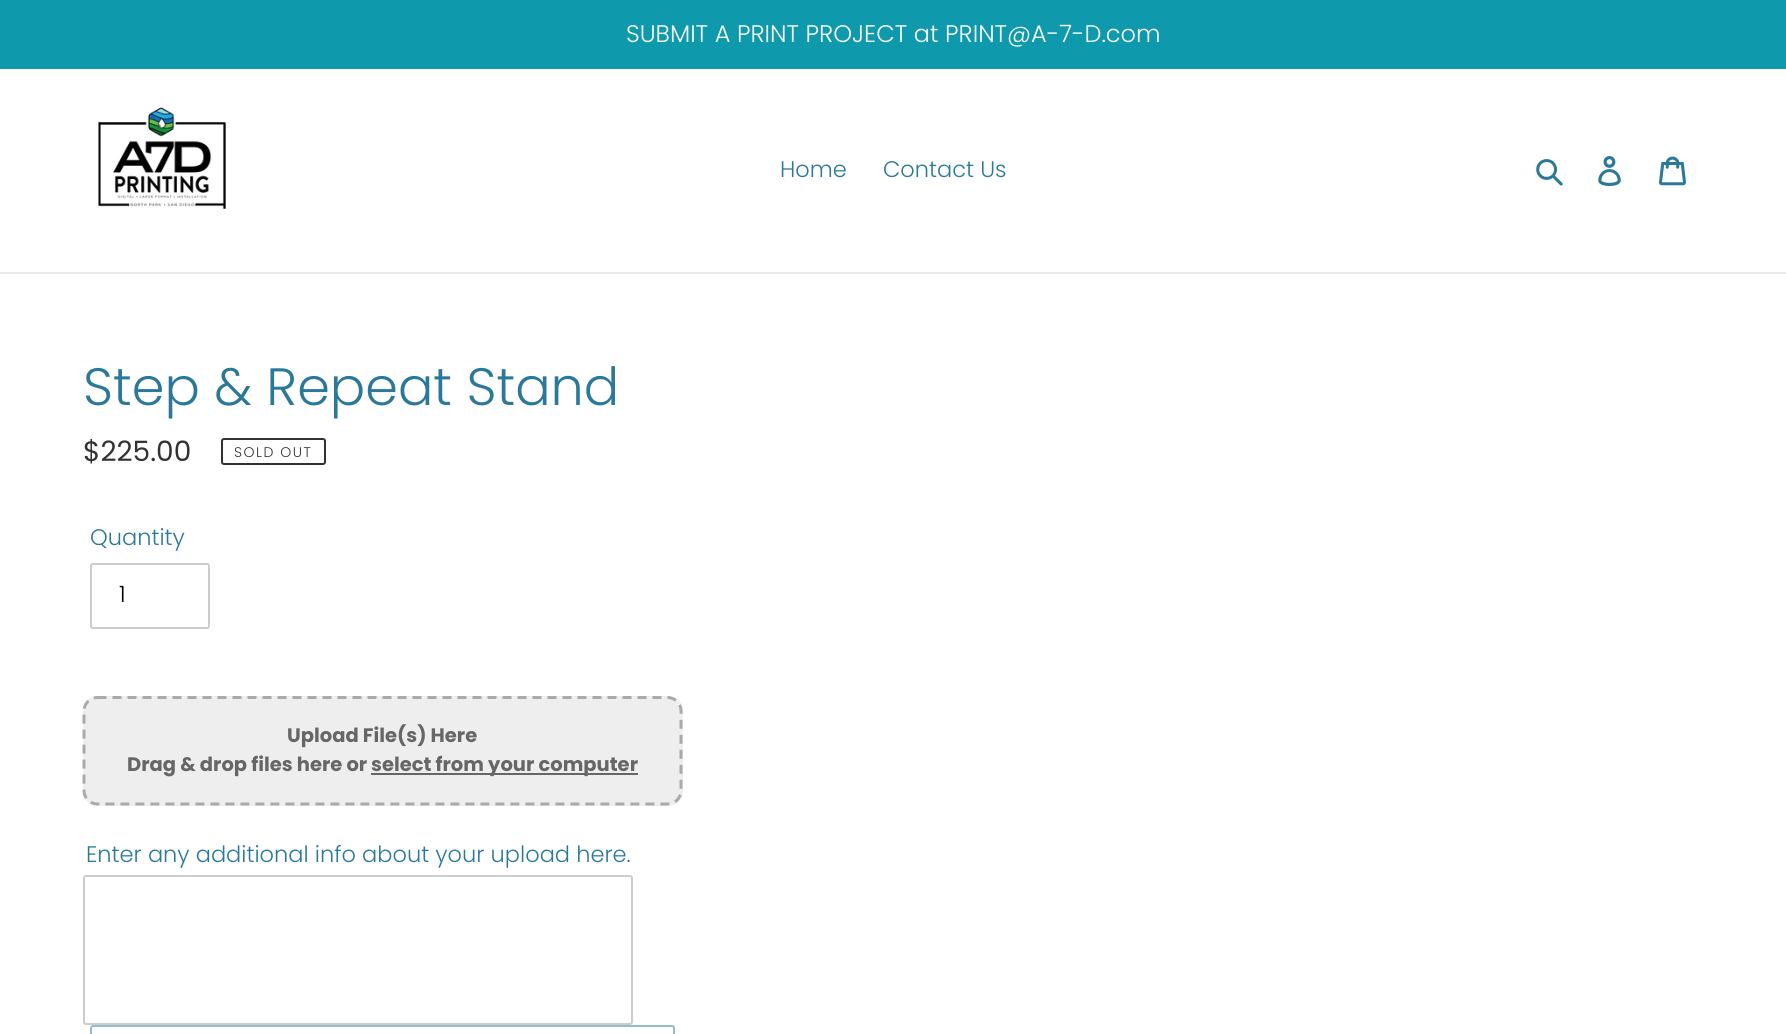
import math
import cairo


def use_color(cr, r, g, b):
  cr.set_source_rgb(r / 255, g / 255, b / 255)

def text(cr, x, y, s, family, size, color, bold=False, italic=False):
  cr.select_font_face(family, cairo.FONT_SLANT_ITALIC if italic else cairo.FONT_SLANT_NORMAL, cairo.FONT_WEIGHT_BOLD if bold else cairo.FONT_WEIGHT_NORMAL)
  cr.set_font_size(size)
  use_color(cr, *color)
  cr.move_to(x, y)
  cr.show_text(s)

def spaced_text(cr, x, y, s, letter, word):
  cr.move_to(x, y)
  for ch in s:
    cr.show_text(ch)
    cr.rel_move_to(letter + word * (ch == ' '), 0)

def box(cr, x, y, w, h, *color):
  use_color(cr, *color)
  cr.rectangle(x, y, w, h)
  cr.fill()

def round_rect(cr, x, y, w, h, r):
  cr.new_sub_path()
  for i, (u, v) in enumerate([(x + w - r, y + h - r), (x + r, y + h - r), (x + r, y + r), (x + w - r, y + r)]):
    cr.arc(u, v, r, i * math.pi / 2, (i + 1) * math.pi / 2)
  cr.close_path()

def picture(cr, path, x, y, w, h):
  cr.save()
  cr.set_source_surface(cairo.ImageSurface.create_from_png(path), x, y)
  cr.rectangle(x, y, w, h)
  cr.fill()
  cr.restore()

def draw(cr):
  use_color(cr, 255, 255, 255)
  cr.paint()
  box(cr, 0, 0, 1786, 69, 14, 154, 172)
  box(cr, 0, 272, 1786, 2, 235, 235, 235)
  picture(cr, "img_01.png", 98, 107, 128, 102)
  picture(cr, "img_02.png", 1536, 159, 27, 27)
  picture(cr, "img_03.png", 1598, 156, 23, 30)
  picture(cr, "img_04.png", 1659, 156, 27, 30)
  round_rect(cr, 222, 439, 103, 25, 2)
  use_color(cr, 51, 50, 50)
  cr.stroke()
  round_rect(cr, 91, 564, 118, 64, 2)
  use_color(cr, 204, 204, 204)
  cr.stroke()
  use_color(cr, 238, 238, 238)
  round_rect(cr, 83, 696, 600, 110, 15)
  cr.fill()
  cr.new_path()
  cr.move_to(97.5, 697.5)
  cr.line_to(667.5, 697.5)
  cr.curve_to(675, 697.5, 681, 703.5, 681, 711)
  cr.line_to(681, 790.5)
  cr.curve_to(681, 798, 675, 804, 667.5, 804)
  cr.line_to(97.5, 804)
  cr.curve_to(90, 804, 84, 798, 84, 790.5)
  cr.line_to(84, 711)
  cr.curve_to(84, 703.5, 90, 697.5, 97.5, 697.5)
  cr.close_path()
  use_color(cr, 170, 170, 170)
  cr.set_line_width(3)
  cr.set_dash([9, 6])
  cr.stroke()
  box(cr, 371, 773, 267, 2, 102, 102, 102)
  round_rect(cr, 84, 876, 548, 148, 2)
  use_color(cr, 204, 204, 204)
  cr.set_line_width(2)
  cr.set_dash([])
  cr.stroke()
  round_rect(cr, 91, 1026, 583, 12, 2)
  use_color(cr, 149, 188, 205)
  cr.stroke()
  text(cr, 626, 42, "SUBMIT A PRINT PROJECT at PRINT@A-7-D.com", "Poppins Light", 24, (255, 255, 255))
  text(cr, 780, 177, "Home", "Poppins Light", 22.5, (43, 121, 154))
  text(cr, 883, 177, "Contact Us", "Poppins Light", 22.5, (43, 121, 154))
  text(cr, 83, 405, "Step & Repeat Stand", "Poppins Light", 52.5, (43, 121, 154))
  text(cr, 83, 461, "$225.00", "Poppins", 28, (51, 50, 50))
  cr.select_font_face("Poppins Light")
  cr.set_font_size(14)
  spaced_text(cr, 234, 457, "SOLD OUT", 1.5, 0)
  text(cr, 90, 545, "Quantity", "Poppins Light", 22.5, (43, 121, 154))
  text(cr, 119, 602, "1", "Poppins Light", 22.5, (0, 0, 0))
  text(cr, 287, 742, "Upload File(s) Here", "Poppins", 19.5, (102, 102, 102), bold=True)
  text(cr, 127, 771, "Drag & drop files here or", "Poppins", 19.5, (102, 102, 102), bold=True)
  text(cr, 371, 771, "select from your computer", "Poppins", 19.5, (102, 102, 102), bold=True)
  text(cr, 86, 862, "Enter any additional info about your upload here.", "Poppins Light", 22.5, (43, 121, 154))


surface = cairo.ImageSurface(cairo.FORMAT_RGB24, 1786, 1034)
cr = cairo.Context(surface)
options = cairo.FontOptions()
options.set_hint_metrics(cairo.HINT_METRICS_OFF)
options.set_hint_style(cairo.HINT_STYLE_NONE)
cr.set_font_options(options)
cr.set_miter_limit(4)
draw(cr)
surface.write_to_png("out.png")
